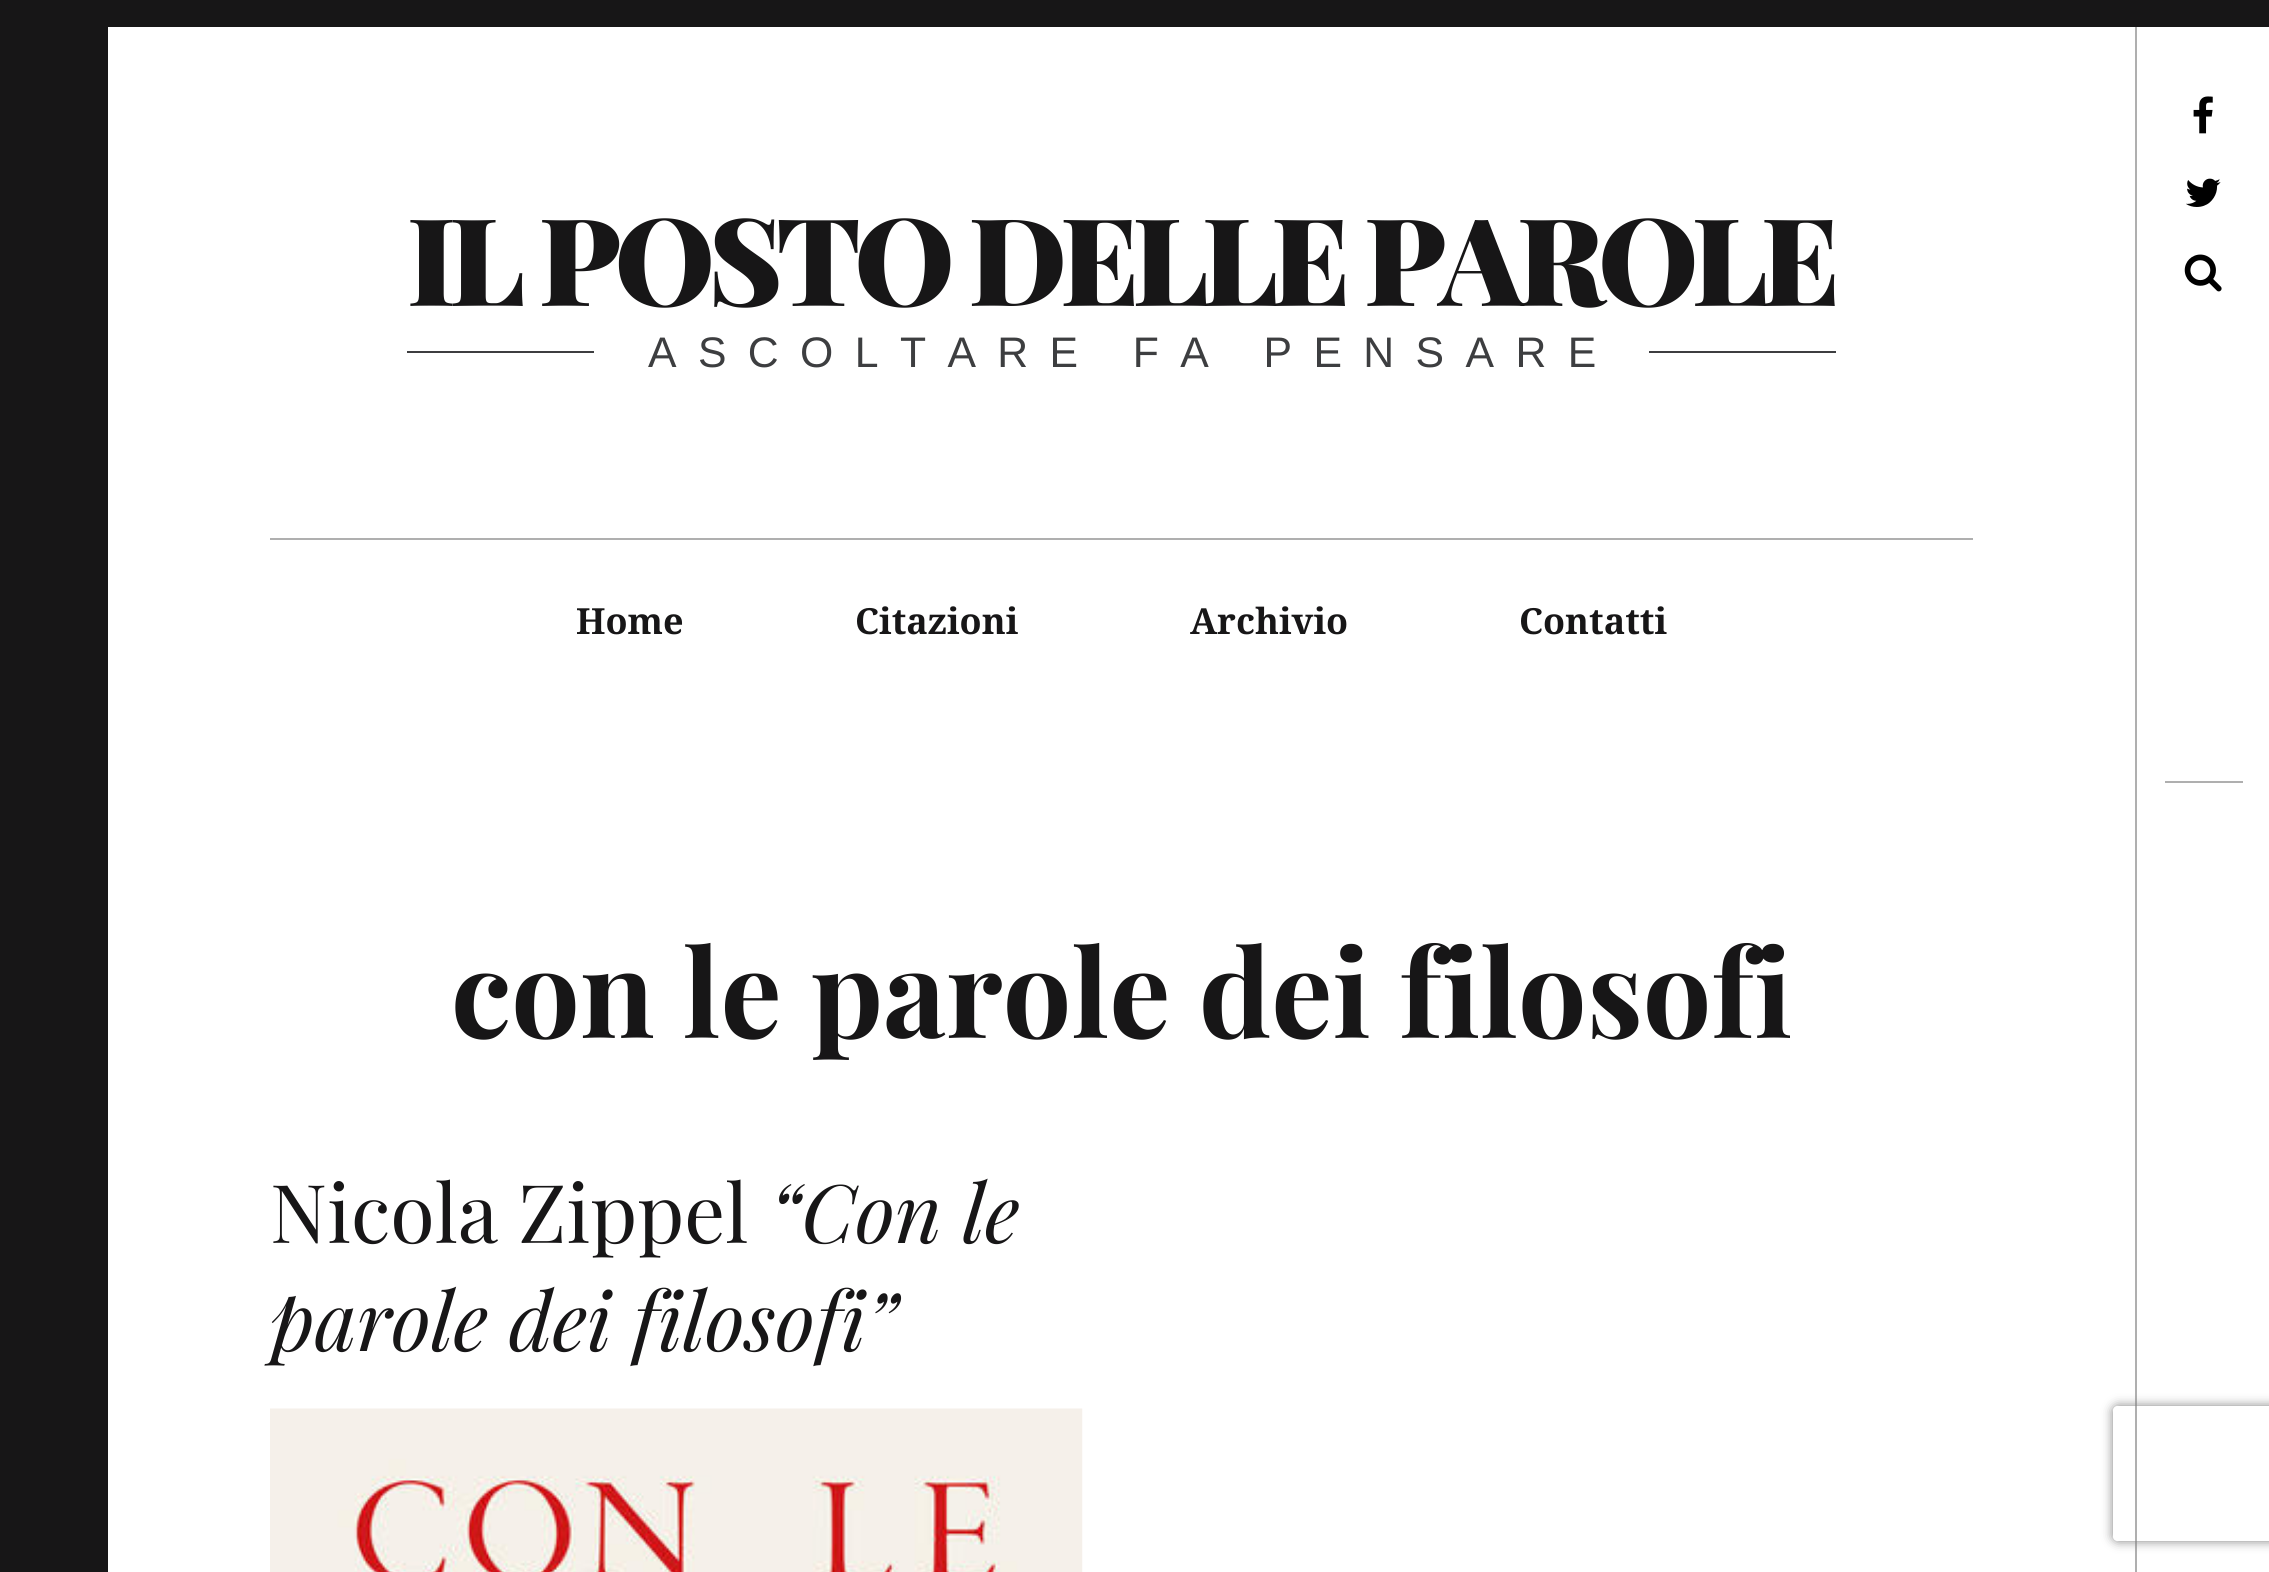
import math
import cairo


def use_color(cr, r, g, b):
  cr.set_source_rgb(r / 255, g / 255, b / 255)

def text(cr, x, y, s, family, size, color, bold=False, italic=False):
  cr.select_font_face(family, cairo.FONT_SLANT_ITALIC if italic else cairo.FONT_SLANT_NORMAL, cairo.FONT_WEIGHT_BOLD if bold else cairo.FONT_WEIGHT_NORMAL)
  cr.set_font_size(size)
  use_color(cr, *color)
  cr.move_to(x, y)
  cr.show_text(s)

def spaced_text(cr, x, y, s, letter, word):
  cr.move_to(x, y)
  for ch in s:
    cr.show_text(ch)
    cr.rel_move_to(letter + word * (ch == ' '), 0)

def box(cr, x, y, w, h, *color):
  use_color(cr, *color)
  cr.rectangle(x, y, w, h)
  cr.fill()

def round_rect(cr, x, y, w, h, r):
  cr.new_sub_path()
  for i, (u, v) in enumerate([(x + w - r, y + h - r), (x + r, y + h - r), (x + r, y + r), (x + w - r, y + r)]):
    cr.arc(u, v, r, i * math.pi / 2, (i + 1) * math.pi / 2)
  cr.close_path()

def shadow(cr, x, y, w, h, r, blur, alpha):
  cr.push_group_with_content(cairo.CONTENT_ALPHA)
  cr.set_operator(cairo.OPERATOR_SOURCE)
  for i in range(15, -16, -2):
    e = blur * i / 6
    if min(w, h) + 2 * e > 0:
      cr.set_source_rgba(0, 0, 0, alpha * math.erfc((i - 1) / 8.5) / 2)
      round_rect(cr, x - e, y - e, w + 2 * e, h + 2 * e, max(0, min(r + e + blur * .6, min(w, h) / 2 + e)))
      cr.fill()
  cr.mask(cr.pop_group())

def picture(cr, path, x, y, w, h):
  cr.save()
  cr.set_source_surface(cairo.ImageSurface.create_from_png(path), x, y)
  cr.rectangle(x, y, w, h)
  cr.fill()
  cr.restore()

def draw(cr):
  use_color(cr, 255, 255, 255)
  cr.paint()
  box(cr, 0, 0, 108, 1572, 23, 22, 23)
  box(cr, 108, 0, 2161, 27, 23, 22, 23)
  box(cr, 407, 351, 1429, 2, 61, 62, 64)
  box(cr, 594, 351, 1055, 2, 255, 255, 255)
  box(cr, 270, 538, 1703, 2, 175, 175, 175)
  picture(cr, "img_01.png", 270, 1408, 813, 164)
  box(cr, 2135, 27, 2, 1545, 175, 175, 175)
  picture(cr, "img_02.png", 2193, 96, 20, 38)
  picture(cr, "img_03.png", 2186, 178, 35, 29)
  picture(cr, "img_04.png", 2184, 254, 38, 38)
  box(cr, 2165, 781, 78, 2, 175, 175, 175)
  cr.save()
  cr.set_fill_rule(cairo.FILL_RULE_EVEN_ODD)
  cr.new_path()
  cr.move_to(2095, 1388)
  cr.line_to(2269, 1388)
  cr.line_to(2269, 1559)
  cr.line_to(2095, 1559)
  cr.close_path()
  cr.move_to(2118, 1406)
  cr.line_to(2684, 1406)
  cr.curve_to(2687, 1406, 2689, 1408, 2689, 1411)
  cr.line_to(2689, 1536)
  cr.curve_to(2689, 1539, 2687, 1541, 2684, 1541)
  cr.line_to(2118, 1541)
  cr.curve_to(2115, 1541, 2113, 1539, 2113, 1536)
  cr.line_to(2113, 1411)
  cr.curve_to(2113, 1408, 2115, 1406, 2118, 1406)
  cr.close_path()
  cr.clip()
  use_color(cr, 128, 128, 128)
  shadow(cr, 2113, 1406, 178, 135, 5, 5.5, 1)
  cr.restore()
  cr.select_font_face("Playfair Display Black")
  cr.set_font_size(121.5)
  use_color(cr, 23, 22, 23)
  spaced_text(cr, 407, 306, "IL POSTO DELLE PAROLE", -6.7, 0)
  cr.select_font_face("Liberation Sans")
  cr.set_font_size(42.75)
  use_color(cr, 61, 62, 64)
  spaced_text(cr, 648, 367, "ASCOLTARE FA PENSARE", 21.4, 0)
  text(cr, 576, 634, "Home", "Droid Serif", 36, (23, 22, 23), bold=True)
  text(cr, 855, 634, "Citazioni", "Droid Serif", 36, (23, 22, 23), bold=True)
  text(cr, 1190, 634, "Archivio", "Droid Serif", 36, (23, 22, 23), bold=True)
  text(cr, 1519, 634, "Contatti", "Droid Serif", 36, (23, 22, 23), bold=True)
  text(cr, 451, 1038, "con le parole dei filosofi", "Playfair Display", 121.5, (23, 22, 23), bold=True)
  text(cr, 270, 1243, "Nicola Zippel", "Playfair Display", 81, (23, 22, 23))
  text(cr, 769, 1243, "“Con le", "Playfair Display", 81, (23, 22, 23), italic=True)
  text(cr, 270, 1351, "parole dei filosofi”", "Playfair Display", 81, (23, 22, 23), italic=True)


surface = cairo.ImageSurface(cairo.FORMAT_RGB24, 2269, 1572)
cr = cairo.Context(surface)
options = cairo.FontOptions()
options.set_hint_metrics(cairo.HINT_METRICS_OFF)
options.set_hint_style(cairo.HINT_STYLE_NONE)
cr.set_font_options(options)
cr.set_miter_limit(4)
draw(cr)
surface.write_to_png("out.png")
